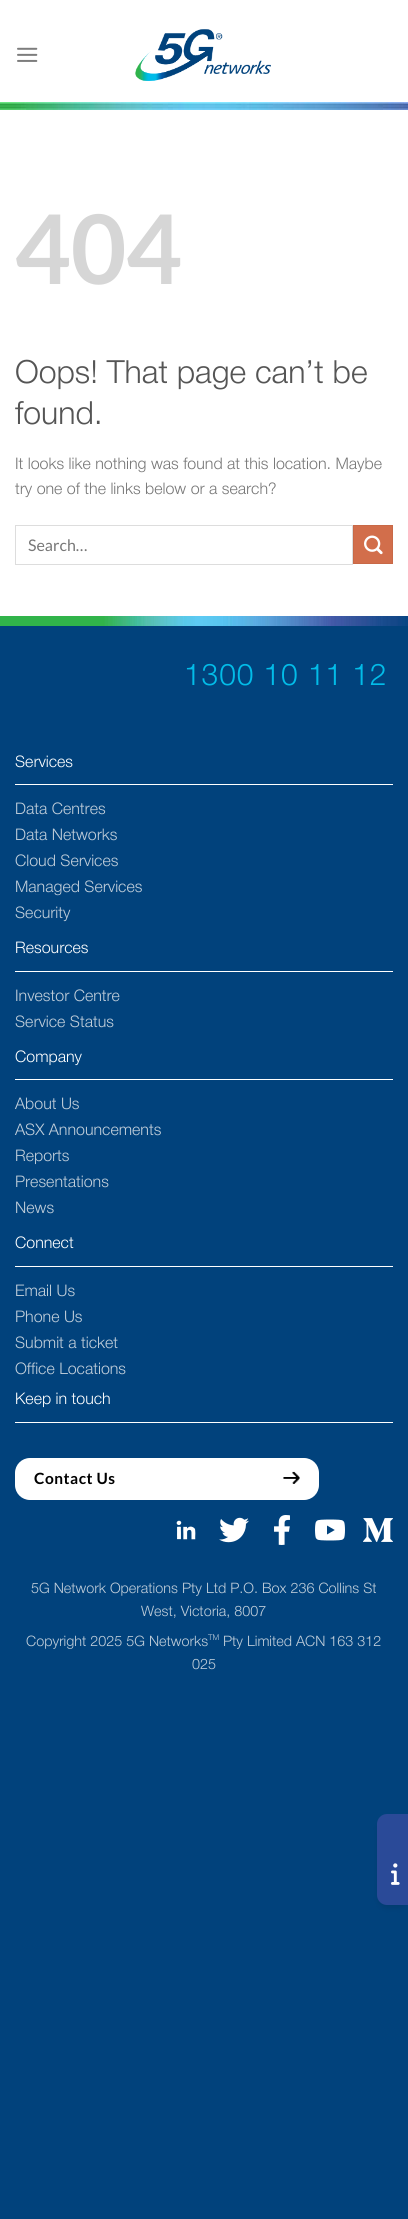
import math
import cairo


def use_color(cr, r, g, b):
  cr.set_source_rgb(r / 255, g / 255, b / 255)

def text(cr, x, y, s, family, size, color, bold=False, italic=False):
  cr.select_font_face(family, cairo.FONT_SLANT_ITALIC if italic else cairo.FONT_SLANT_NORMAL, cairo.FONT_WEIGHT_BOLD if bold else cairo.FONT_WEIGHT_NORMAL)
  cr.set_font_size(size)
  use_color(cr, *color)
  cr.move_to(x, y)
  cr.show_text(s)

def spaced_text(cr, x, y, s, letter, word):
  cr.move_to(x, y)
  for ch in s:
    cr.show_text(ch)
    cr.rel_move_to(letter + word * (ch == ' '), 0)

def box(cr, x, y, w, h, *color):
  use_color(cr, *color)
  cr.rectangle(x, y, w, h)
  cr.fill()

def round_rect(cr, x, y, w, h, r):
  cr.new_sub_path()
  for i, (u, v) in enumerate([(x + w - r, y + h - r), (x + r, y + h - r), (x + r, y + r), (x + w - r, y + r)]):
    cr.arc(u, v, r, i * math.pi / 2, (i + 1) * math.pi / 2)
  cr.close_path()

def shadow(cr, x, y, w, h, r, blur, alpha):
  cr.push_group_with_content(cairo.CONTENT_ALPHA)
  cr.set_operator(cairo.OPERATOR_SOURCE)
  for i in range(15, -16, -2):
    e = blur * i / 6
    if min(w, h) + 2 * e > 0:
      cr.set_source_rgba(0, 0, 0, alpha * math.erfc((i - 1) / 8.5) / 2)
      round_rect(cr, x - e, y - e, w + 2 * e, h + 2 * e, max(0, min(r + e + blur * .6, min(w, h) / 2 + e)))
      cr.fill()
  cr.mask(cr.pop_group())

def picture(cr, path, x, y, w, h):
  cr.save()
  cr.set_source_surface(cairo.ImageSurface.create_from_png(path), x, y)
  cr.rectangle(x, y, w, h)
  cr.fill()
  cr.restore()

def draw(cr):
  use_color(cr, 1, 66, 124)
  cr.paint()
  box(cr, 0, 0, 408, 616, 255, 255, 255)
  picture(cr, "img_01.png", 17, 47, 21, 15)
  picture(cr, "img_02.png", 135, 29, 136, 52)
  picture(cr, "img_03.png", 0, 102, 408, 8)
  cr.rectangle(15.5, 525.5, 337, 39)
  use_color(cr, 221, 221, 221)
  cr.set_line_width(1)
  cr.stroke()
  use_color(cr, 210, 110, 75)
  cr.rectangle(353.5, 525.5, 39, 38)
  cr.fill_preserve()
  use_color(cr, 200, 105, 71)
  cr.stroke()
  picture(cr, "img_04.png", 364, 535, 19, 20)
  picture(cr, "img_05.png", 0, 616, 408, 10)
  box(cr, 15, 784, 378, 1, 255, 255, 255)
  box(cr, 15, 971, 378, 1, 255, 255, 255)
  box(cr, 15, 1079, 378, 1, 255, 255, 255)
  box(cr, 15, 1266, 378, 1, 255, 255, 255)
  box(cr, 15, 1422, 378, 1, 255, 255, 255)
  round_rect(cr, 15, 1458, 304, 42, 15)
  cr.fill()
  picture(cr, "img_06.png", 283, 1471, 17, 13)
  picture(cr, "img_07.png", 176, 1520, 20, 20)
  picture(cr, "img_08.png", 219, 1517, 30, 26)
  picture(cr, "img_09.png", 274, 1515, 16, 30)
  picture(cr, "img_10.png", 315, 1519, 30, 22)
  picture(cr, "img_11.png", 363, 1518, 30, 24)
  use_color(cr, 0, 0, 0)
  shadow(cr, 378, 1819, 30, 89, 9, 3, 0.1)
  use_color(cr, 42, 74, 152)
  cr.new_path()
  cr.move_to(387, 1814)
  cr.line_to(408, 1814)
  cr.line_to(408, 1905)
  cr.line_to(387, 1905)
  cr.curve_to(381.5, 1905, 377, 1900.5, 377, 1895)
  cr.line_to(377, 1824)
  cr.curve_to(377, 1818.5, 381.5, 1814, 387, 1814)
  cr.close_path()
  cr.fill()
  picture(cr, "img_12.png", 391, 1863, 9, 22)
  text(cr, 15, 284, "404", "Lato", 96, (214, 214, 214), bold=True)
  text(cr, 15, 383, "Oops! That page can’t be", "Helvetica Neue Light", 32, (85, 85, 85))
  text(cr, 15, 424, "found.", "Helvetica Neue Light", 32, (85, 85, 85))
  text(cr, 15, 469, "It looks like nothing was found at this location. Maybe", "Helvetica Neue Light", 16, (119, 119, 119))
  text(cr, 15, 494, "try one of the links below or a search?", "Helvetica Neue Light", 16, (119, 119, 119))
  text(cr, 28, 551, "Search…", "Lato", 16, (119, 119, 119))
  cr.select_font_face("Helvetica Neue Light")
  cr.set_font_size(30)
  use_color(cr, 2, 188, 232)
  spaced_text(cr, 184, 685, "1300 10 11 12", 0.9, 0)
  text(cr, 15, 767, "Services", "Helvetica Neue Light", 16, (255, 255, 255))
  text(cr, 15, 814, "Data Centres", "Helvetica Neue Light", 16, (193, 206, 218))
  text(cr, 15, 840, "Data Networks", "Helvetica Neue Light", 16, (193, 206, 218))
  text(cr, 15, 866, "Cloud Services", "Helvetica Neue Light", 16, (193, 206, 218))
  text(cr, 15, 892, "Managed Services", "Helvetica Neue Light", 16, (193, 206, 218))
  text(cr, 15, 918, "Security", "Helvetica Neue Light", 16, (193, 206, 218))
  text(cr, 15, 953, "Resources", "Helvetica Neue Light", 16, (255, 255, 255))
  text(cr, 15, 1001, "Investor Centre", "Helvetica Neue Light", 16, (193, 206, 218))
  text(cr, 15, 1027, "Service Status", "Helvetica Neue Light", 16, (193, 206, 218))
  text(cr, 15, 1062, "Company", "Helvetica Neue Light", 16, (255, 255, 255))
  text(cr, 15, 1109, "About Us", "Helvetica Neue Light", 16, (193, 206, 218))
  text(cr, 15, 1135, "ASX Announcements", "Helvetica Neue Light", 16, (193, 206, 218))
  text(cr, 15, 1161, "Reports", "Helvetica Neue Light", 16, (193, 206, 218))
  text(cr, 15, 1187, "Presentations", "Helvetica Neue Light", 16, (193, 206, 218))
  text(cr, 15, 1213, "News", "Helvetica Neue Light", 16, (193, 206, 218))
  text(cr, 15, 1248, "Connect", "Helvetica Neue Light", 16, (255, 255, 255))
  text(cr, 15, 1296, "Email Us", "Helvetica Neue Light", 16, (193, 206, 218))
  text(cr, 15, 1322, "Phone Us", "Helvetica Neue Light", 16, (193, 206, 218))
  text(cr, 15, 1348, "Submit a ticket", "Helvetica Neue Light", 16, (193, 206, 218))
  text(cr, 15, 1374, "Office Locations", "Helvetica Neue Light", 16, (193, 206, 218))
  text(cr, 15, 1404, "Keep in touch", "Helvetica Neue Light", 16, (255, 255, 255))
  cr.select_font_face("Lato", cairo.FONT_SLANT_NORMAL, cairo.FONT_WEIGHT_BOLD)
  cr.set_font_size(15.5)
  use_color(cr, 0, 0, 0)
  spaced_text(cr, 34, 1484, "Contact Us", 0.5, 0)
  text(cr, 31, 1593, "5G Network Operations Pty Ltd P.O. Box 236 Collins St", "Helvetica Neue Light", 14.4, (193, 206, 218))
  text(cr, 141, 1616, "West, Victoria, 8007", "Helvetica Neue Light", 14.4, (193, 206, 218))
  text(cr, 26, 1646, "Copyright 2025 5G Networks", "Helvetica Neue Light", 14.4, (193, 206, 218))
  text(cr, 208, 1640, "TM", "Helvetica Neue Light", 8, (193, 206, 218))
  text(cr, 223, 1646, "Pty Limited ACN 163 312", "Helvetica Neue Light", 14.4, (193, 206, 218))
  text(cr, 192, 1669, "025", "Helvetica Neue Light", 14.4, (193, 206, 218))


surface = cairo.ImageSurface(cairo.FORMAT_RGB24, 408, 2219)
cr = cairo.Context(surface)
options = cairo.FontOptions()
options.set_hint_metrics(cairo.HINT_METRICS_OFF)
options.set_hint_style(cairo.HINT_STYLE_NONE)
cr.set_font_options(options)
cr.set_miter_limit(4)
draw(cr)
surface.write_to_png("out.png")
